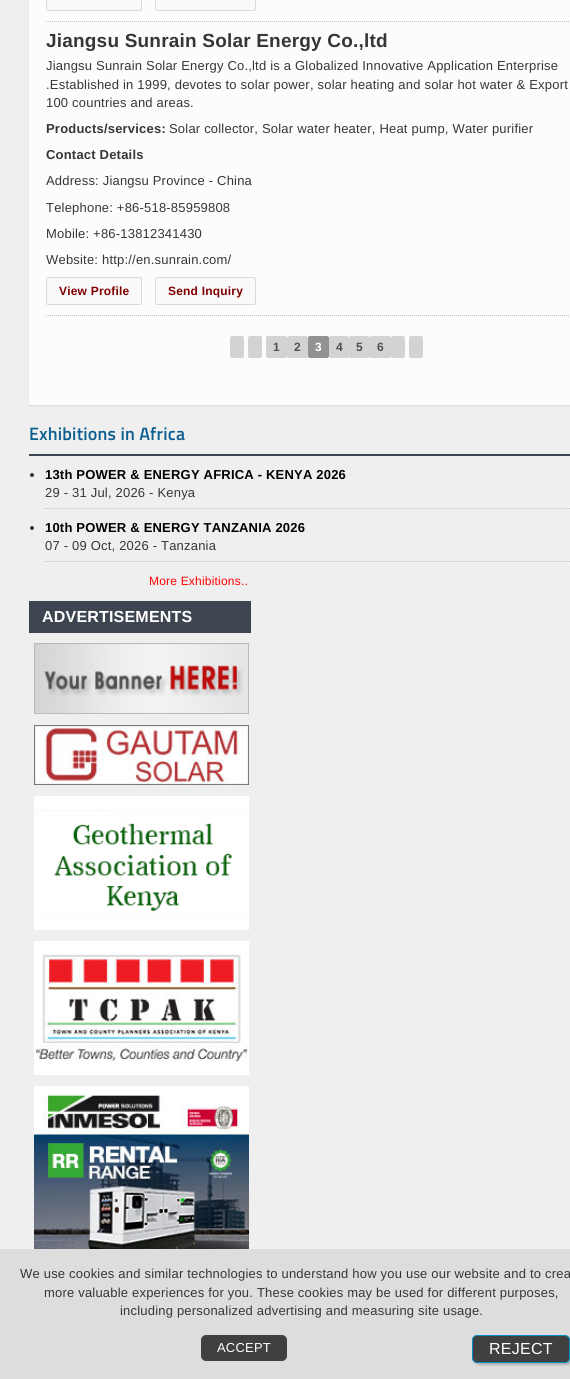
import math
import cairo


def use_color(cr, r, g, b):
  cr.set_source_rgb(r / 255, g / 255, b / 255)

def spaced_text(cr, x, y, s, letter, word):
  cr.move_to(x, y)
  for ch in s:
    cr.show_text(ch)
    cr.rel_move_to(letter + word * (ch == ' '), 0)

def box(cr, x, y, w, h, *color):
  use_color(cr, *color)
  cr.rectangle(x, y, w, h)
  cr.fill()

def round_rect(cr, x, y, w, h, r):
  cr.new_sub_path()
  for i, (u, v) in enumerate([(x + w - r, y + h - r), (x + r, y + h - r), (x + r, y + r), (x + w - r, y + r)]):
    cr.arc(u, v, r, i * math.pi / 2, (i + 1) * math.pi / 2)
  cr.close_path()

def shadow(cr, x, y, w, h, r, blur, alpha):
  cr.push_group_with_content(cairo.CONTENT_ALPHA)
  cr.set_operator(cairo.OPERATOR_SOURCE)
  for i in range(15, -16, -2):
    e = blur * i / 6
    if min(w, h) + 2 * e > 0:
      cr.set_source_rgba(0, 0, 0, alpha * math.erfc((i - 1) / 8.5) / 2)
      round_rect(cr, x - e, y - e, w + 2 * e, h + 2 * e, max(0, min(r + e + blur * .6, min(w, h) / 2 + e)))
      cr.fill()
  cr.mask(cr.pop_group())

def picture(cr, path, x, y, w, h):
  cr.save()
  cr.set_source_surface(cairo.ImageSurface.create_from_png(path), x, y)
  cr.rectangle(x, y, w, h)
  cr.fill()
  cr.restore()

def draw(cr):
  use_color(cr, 240, 239, 239)
  cr.paint()
  use_color(cr, 0, 0, 0)
  shadow(cr, 29, -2, 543, 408, 0, 0.5, 0.08)
  box(cr, 29, 0, 541, 405, 252, 252, 252)
  cr.new_path()
  cr.move_to(46, 21.5)
  cr.line_to(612, 21.5)
  use_color(cr, 192, 191, 191)
  cr.set_line_width(1)
  cr.set_dash([1, 1])
  cr.stroke()
  use_color(cr, 249, 249, 249)
  round_rect(cr, 46.5, -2.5, 95, 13, 1.5)
  cr.fill_preserve()
  use_color(cr, 219, 219, 219)
  cr.set_dash([])
  cr.stroke()
  use_color(cr, 249, 249, 249)
  round_rect(cr, 155.5, -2.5, 100, 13, 1.5)
  cr.fill_preserve()
  use_color(cr, 219, 219, 219)
  cr.stroke()
  cr.new_path()
  cr.move_to(46, 315.5)
  cr.line_to(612, 315.5)
  use_color(cr, 192, 191, 191)
  cr.set_dash([1, 1])
  cr.stroke()
  use_color(cr, 249, 249, 249)
  round_rect(cr, 46.5, 277.5, 95, 27, 1.5)
  cr.fill_preserve()
  use_color(cr, 219, 219, 219)
  cr.set_dash([])
  cr.stroke()
  use_color(cr, 249, 249, 249)
  round_rect(cr, 155.5, 277.5, 100, 27, 1.5)
  cr.fill_preserve()
  use_color(cr, 219, 219, 219)
  cr.stroke()
  use_color(cr, 212, 211, 211)
  round_rect(cr, 230, 336, 14, 22, 2)
  cr.fill()
  round_rect(cr, 248, 336, 14, 22, 2)
  cr.fill()
  round_rect(cr, 266, 336, 21, 22, 2)
  cr.fill()
  round_rect(cr, 287, 336, 21, 22, 2)
  cr.fill()
  use_color(cr, 146, 146, 146)
  round_rect(cr, 308, 336, 21, 22, 2)
  cr.fill()
  use_color(cr, 212, 211, 211)
  round_rect(cr, 329, 336, 20, 22, 2)
  cr.fill()
  round_rect(cr, 349, 336, 21, 22, 2)
  cr.fill()
  round_rect(cr, 370, 336, 21, 22, 2)
  cr.fill()
  round_rect(cr, 391, 336, 14, 22, 2)
  cr.fill()
  round_rect(cr, 409, 336, 14, 22, 2)
  cr.fill()
  box(cr, 29, 454, 541, 2, 61, 69, 80)
  cr.new_path()
  cr.move_to(45, 508.5)
  cr.line_to(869, 508.5)
  use_color(cr, 192, 191, 191)
  cr.set_dash([1, 1])
  cr.stroke()
  use_color(cr, 54, 54, 53)
  cr.arc(32, 475, 2, 0, 2 * math.pi)
  cr.fill()
  cr.new_path()
  cr.move_to(45, 561.5)
  cr.line_to(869, 561.5)
  use_color(cr, 192, 191, 191)
  cr.stroke()
  use_color(cr, 54, 54, 53)
  cr.arc(32, 528, 2, 0, 2 * math.pi)
  cr.fill()
  box(cr, 29, 601, 222, 32, 61, 69, 80)
  picture(cr, "img_01.png", 34, 643, 215, 71)
  picture(cr, "img_02.png", 34, 725, 215, 60)
  picture(cr, "img_03.png", 34, 796, 215, 134)
  picture(cr, "img_04.png", 34, 941, 215, 134)
  picture(cr, "img_05.png", 34, 1086, 215, 163)
  box(cr, 0, 1249, 570, 130, 221, 221, 221)
  use_color(cr, 64, 64, 64)
  round_rect(cr, 201, 1335, 86, 26, 5)
  cr.fill()
  use_color(cr, 0, 0, 0)
  shadow(cr, 474, 1337, 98, 28, 5, 1, 0.2)
  use_color(cr, 64, 64, 64)
  round_rect(cr, 472.5, 1335.5, 97, 27, 4.5)
  cr.fill_preserve()
  use_color(cr, 1, 141, 196)
  cr.set_dash([])
  cr.stroke()
  cr.select_font_face("Liberation Sans", cairo.FONT_SLANT_NORMAL, cairo.FONT_WEIGHT_BOLD)
  cr.set_font_size(19)
  use_color(cr, 54, 54, 53)
  spaced_text(cr, 46, 47, "Jiangsu Sunrain Solar Energy Co.,ltd", 0.2, 0)
  cr.select_font_face("Liberation Sans")
  cr.set_font_size(13)
  spaced_text(cr, 46, 70, "Jiangsu Sunrain Solar Energy Co.,ltd is a Globalized Innovative Application Enterprise", 0.2, 0)
  spaced_text(cr, 46, 89, ".Established in 1999, devotes to solar power, solar heating and solar hot water & Export", 0.2, 0)
  spaced_text(cr, 46, 107, "100 countries and areas.", 0.2, 0)
  cr.select_font_face("Liberation Sans", cairo.FONT_SLANT_NORMAL, cairo.FONT_WEIGHT_BOLD)
  spaced_text(cr, 46, 133, "Products/services:", 0.2, 0)
  cr.select_font_face("Liberation Sans")
  spaced_text(cr, 169, 133, "Solar collector, Solar water heater, Heat pump, Water purifier", 0.2, 0)
  cr.select_font_face("Liberation Sans", cairo.FONT_SLANT_NORMAL, cairo.FONT_WEIGHT_BOLD)
  spaced_text(cr, 46, 159, "Contact Details", 0.2, 0)
  cr.select_font_face("Liberation Sans")
  spaced_text(cr, 46, 185, "Address: Jiangsu Province - China", 0.2, 0)
  spaced_text(cr, 46, 212, "Telephone: +86-518-85959808", 0.2, 0)
  spaced_text(cr, 46, 238, "Mobile: +86-13812341430", 0.2, 0)
  spaced_text(cr, 46, 264, "Website: http://en.sunrain.com/", 0.2, 0)
  cr.select_font_face("Liberation Sans", cairo.FONT_SLANT_NORMAL, cairo.FONT_WEIGHT_BOLD)
  cr.set_font_size(12)
  use_color(cr, 128, 0, 0)
  spaced_text(cr, 59, 295, "View Profile", 0.2, 0)
  spaced_text(cr, 168, 295, "Send Inquiry", 0.2, 0)
  use_color(cr, 80, 80, 80)
  spaced_text(cr, 273, 351, "1", 0.2, 0)
  spaced_text(cr, 294, 351, "2", 0.2, 0)
  use_color(cr, 255, 255, 255)
  spaced_text(cr, 315, 351, "3", 0.2, 0)
  use_color(cr, 80, 80, 80)
  spaced_text(cr, 336, 351, "4", 0.2, 0)
  spaced_text(cr, 356, 351, "5", 0.2, 0)
  spaced_text(cr, 377, 351, "6", 0.2, 0)
  cr.select_font_face("Titillium Web SemiBold")
  cr.set_font_size(18)
  use_color(cr, 12, 95, 144)
  spaced_text(cr, 29, 440, "Exhibitions in Africa", 0.2, 0)
  cr.select_font_face("Liberation Sans", cairo.FONT_SLANT_NORMAL, cairo.FONT_WEIGHT_BOLD)
  cr.set_font_size(13)
  use_color(cr, 0, 0, 0)
  spaced_text(cr, 45, 479, "13th POWER & ENERGY AFRICA - KENYA 2026", 0.2, 0)
  cr.select_font_face("Liberation Sans")
  use_color(cr, 54, 54, 53)
  spaced_text(cr, 45, 497, "29 - 31 Jul, 2026 - Kenya", 0.2, 0)
  cr.select_font_face("Liberation Sans", cairo.FONT_SLANT_NORMAL, cairo.FONT_WEIGHT_BOLD)
  use_color(cr, 0, 0, 0)
  spaced_text(cr, 45, 532, "10th POWER & ENERGY TANZANIA 2026", 0.2, 0)
  cr.select_font_face("Liberation Sans")
  use_color(cr, 54, 54, 53)
  spaced_text(cr, 45, 550, "07 - 09 Oct, 2026 - Tanzania", 0.2, 0)
  cr.set_font_size(12)
  use_color(cr, 255, 0, 0)
  spaced_text(cr, 149, 585, "More Exhibitions..", 0.2, 0)
  cr.select_font_face("Liberation Sans", cairo.FONT_SLANT_NORMAL, cairo.FONT_WEIGHT_BOLD)
  cr.set_font_size(16)
  use_color(cr, 255, 255, 255)
  spaced_text(cr, 42, 622, "ADVERTISEMENTS", 0.2, 0)
  cr.select_font_face("Liberation Sans")
  cr.set_font_size(13)
  use_color(cr, 54, 54, 53)
  spaced_text(cr, 20, 1278, "We use cookies and similar technologies to understand how you use our website and to crea", 0.2, 0)
  spaced_text(cr, 44, 1297, "more valuable experiences for you. These cookies may be used for different purposes,", 0.2, 0)
  spaced_text(cr, 120, 1315, "including personalized advertising and measuring site usage.", 0.2, 0)
  use_color(cr, 255, 255, 255)
  spaced_text(cr, 217, 1352, "ACCEPT", 0.2, 0)
  cr.set_font_size(16)
  spaced_text(cr, 489, 1354, "REJECT", 0.25, 0)


surface = cairo.ImageSurface(cairo.FORMAT_RGB24, 570, 1379)
cr = cairo.Context(surface)
options = cairo.FontOptions()
options.set_hint_metrics(cairo.HINT_METRICS_OFF)
options.set_hint_style(cairo.HINT_STYLE_NONE)
cr.set_font_options(options)
cr.set_miter_limit(4)
draw(cr)
surface.write_to_png("out.png")
